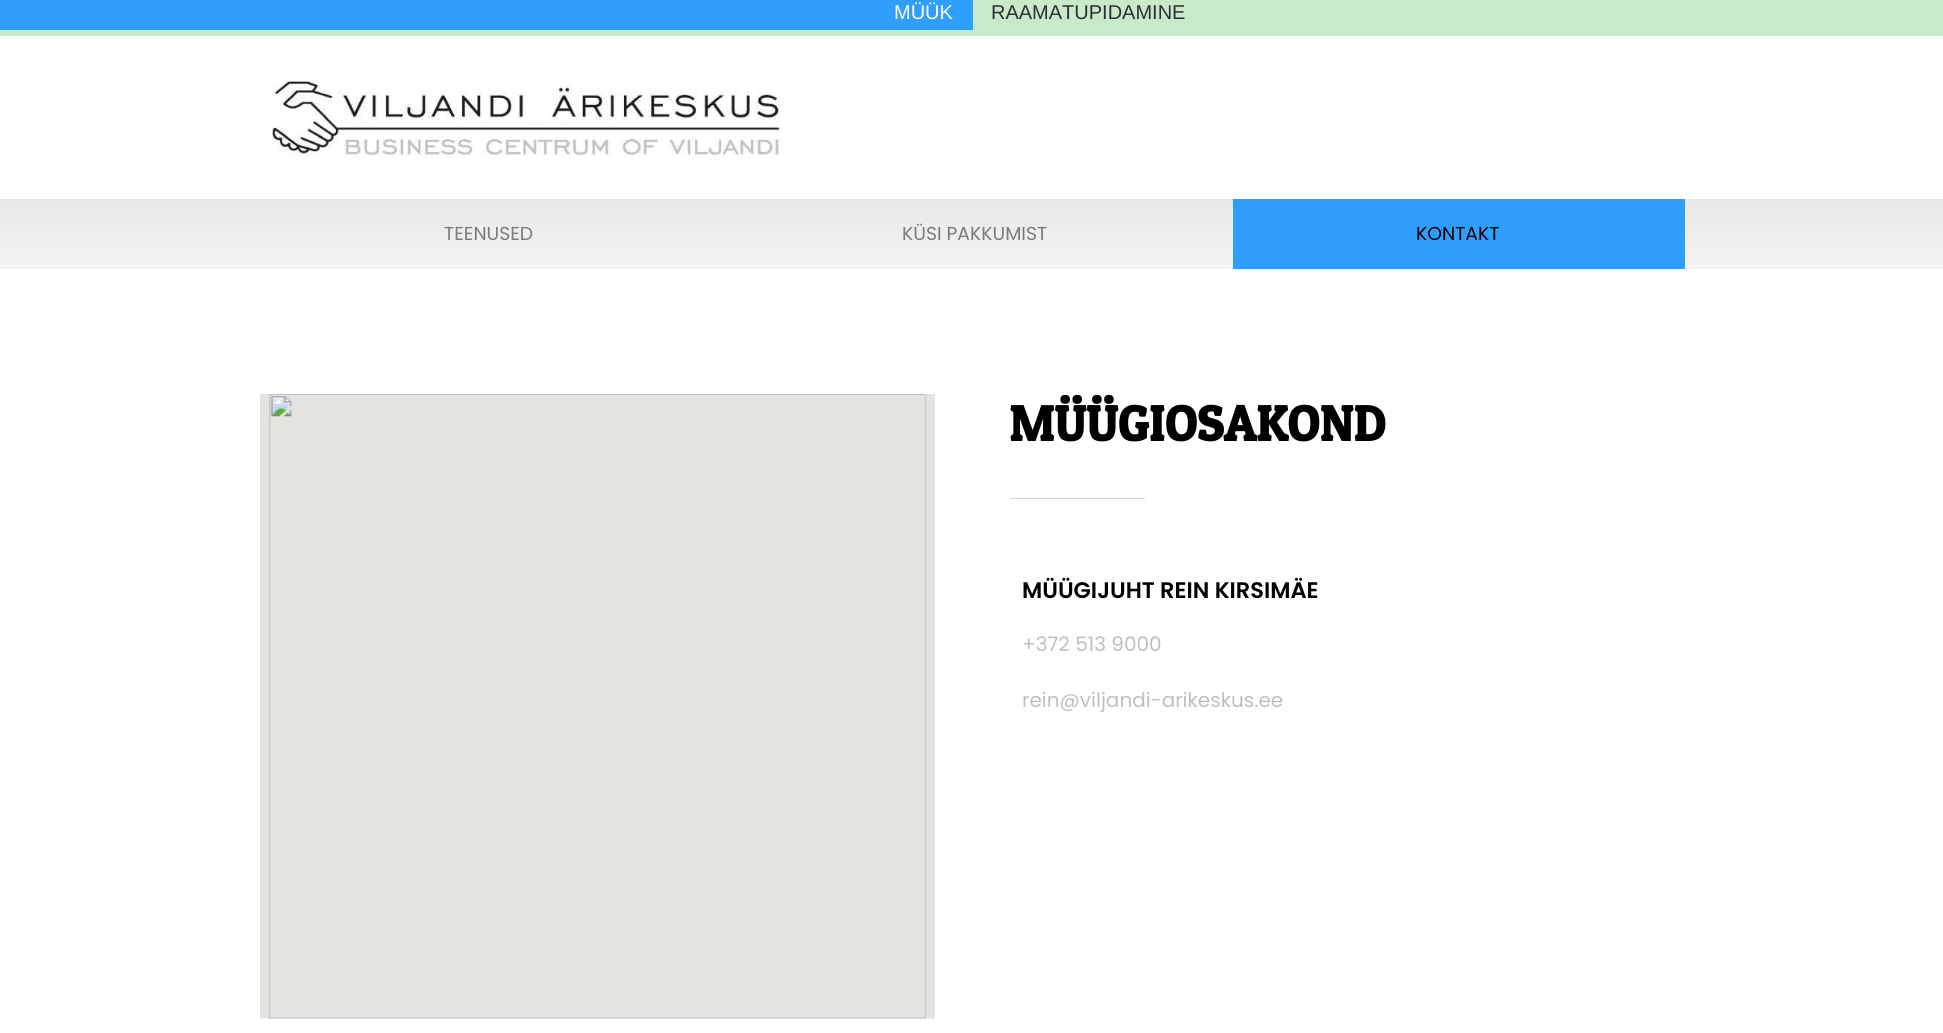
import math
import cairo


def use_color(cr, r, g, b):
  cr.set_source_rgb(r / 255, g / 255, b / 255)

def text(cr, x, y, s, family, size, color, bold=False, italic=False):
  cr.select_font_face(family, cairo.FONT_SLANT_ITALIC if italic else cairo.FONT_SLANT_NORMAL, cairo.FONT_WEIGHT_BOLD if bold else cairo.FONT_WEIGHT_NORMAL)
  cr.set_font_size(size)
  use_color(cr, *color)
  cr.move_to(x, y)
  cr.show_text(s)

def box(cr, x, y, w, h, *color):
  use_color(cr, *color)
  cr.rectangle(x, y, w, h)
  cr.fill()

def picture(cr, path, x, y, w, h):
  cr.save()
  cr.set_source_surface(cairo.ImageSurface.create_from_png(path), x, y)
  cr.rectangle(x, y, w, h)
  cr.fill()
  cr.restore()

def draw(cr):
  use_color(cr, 255, 255, 255)
  cr.paint()
  box(cr, 0, 0, 973, 30, 47, 158, 253)
  box(cr, 973, 0, 970, 30, 201, 234, 200)
  box(cr, 0, 30, 1943, 6, 201, 234, 200)
  picture(cr, "img_01.png", 272, 79, 508, 77)
  gradient = cairo.LinearGradient(972, 199, 972, 269)
  gradient.add_color_stop_rgba(0, 0.91, 0.91, 0.91, 1)
  gradient.add_color_stop_rgba(1, 0.957, 0.957, 0.957, 1)
  cr.set_source(gradient)
  cr.rectangle(0, 199, 1943, 70)
  cr.fill()
  box(cr, 1233, 199, 452, 70, 47, 158, 253)
  picture(cr, "img_02.png", 260, 393, 675, 626)
  box(cr, 1010, 498, 135, 1, 214, 214, 214)
  text(cr, 894, 19, "MÜÜK", "Liberation Sans", 20, (255, 252, 252))
  text(cr, 991, 19, "RAAMATUPIDAMINE", "Liberation Sans", 20, (43, 47, 56))
  text(cr, 444, 240, "TEENUSED", "Poppins", 18.75, (122, 122, 122))
  text(cr, 902, 240, "KÜSI PAKKUMIST", "Poppins", 18.75, (122, 122, 122))
  text(cr, 1416, 240, "KONTAKT", "Poppins", 18.75, (0, 0, 0))
  text(cr, 1009, 441, "MÜÜGIOSAKOND", "Patua One", 50, (0, 0, 0), bold=True)
  text(cr, 1022, 598, "MÜÜGIJUHT REIN KIRSIMÄE", "Poppins SemiBold", 22.5, (0, 0, 0))
  text(cr, 1022, 651, "+372 513 9000", "Poppins", 20, (191, 191, 191))
  text(cr, 1022, 707, "rein@viljandi-arikeskus.ee", "Poppins", 20, (191, 191, 191))


surface = cairo.ImageSurface(cairo.FORMAT_RGB24, 1943, 1033)
cr = cairo.Context(surface)
options = cairo.FontOptions()
options.set_hint_metrics(cairo.HINT_METRICS_OFF)
options.set_hint_style(cairo.HINT_STYLE_NONE)
cr.set_font_options(options)
cr.set_miter_limit(4)
draw(cr)
surface.write_to_png("out.png")
